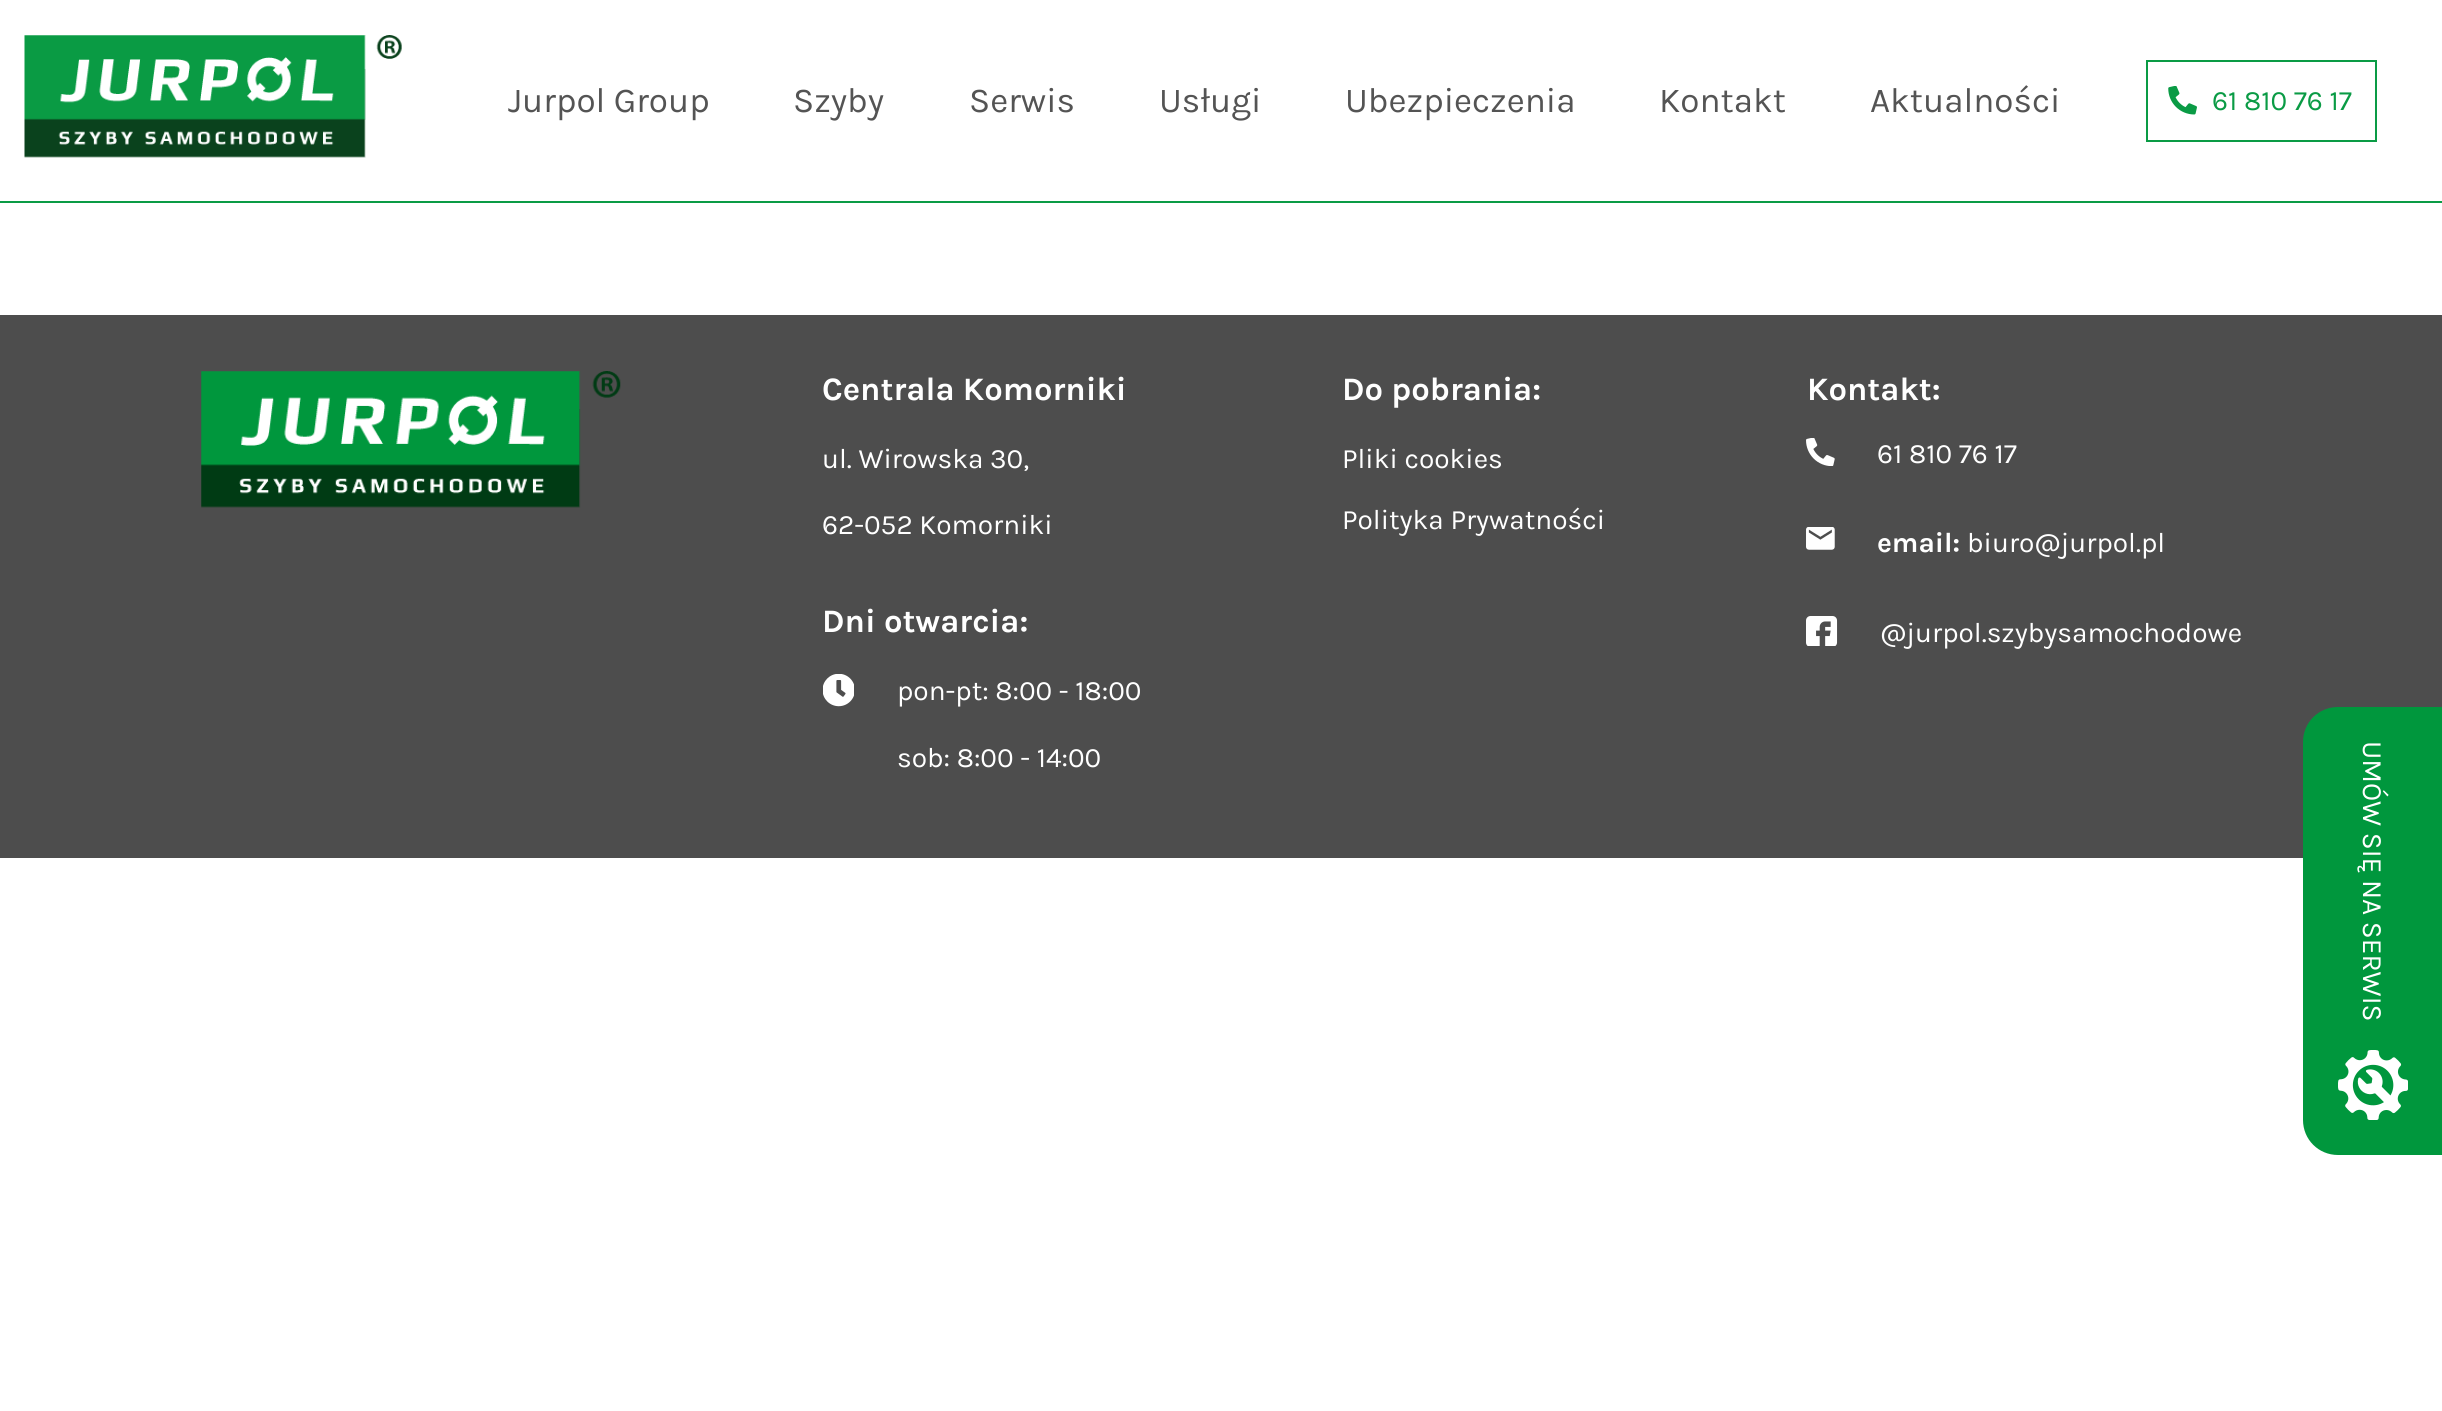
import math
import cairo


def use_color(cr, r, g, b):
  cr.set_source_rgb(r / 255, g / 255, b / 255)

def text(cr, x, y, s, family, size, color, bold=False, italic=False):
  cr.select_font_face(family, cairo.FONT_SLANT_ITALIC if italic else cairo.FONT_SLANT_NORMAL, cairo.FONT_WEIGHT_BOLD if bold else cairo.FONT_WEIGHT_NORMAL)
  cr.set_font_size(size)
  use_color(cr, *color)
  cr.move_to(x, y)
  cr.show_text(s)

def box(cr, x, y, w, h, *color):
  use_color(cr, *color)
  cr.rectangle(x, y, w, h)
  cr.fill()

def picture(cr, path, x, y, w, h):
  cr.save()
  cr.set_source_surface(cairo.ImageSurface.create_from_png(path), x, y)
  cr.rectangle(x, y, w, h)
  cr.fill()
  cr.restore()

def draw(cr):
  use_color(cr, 255, 255, 255)
  cr.paint()
  box(cr, 0, 201, 2442, 2, 10, 155, 69)
  picture(cr, "img_01.png", 24, 35, 378, 123)
  cr.rectangle(2147, 61, 229, 80)
  cr.stroke()
  picture(cr, "img_02.png", 2168, 86, 29, 29)
  box(cr, 0, 315, 2442, 543, 77, 77, 77)
  picture(cr, "img_03.png", 201, 371, 420, 137)
  picture(cr, "img_04.png", 823, 674, 31, 33)
  picture(cr, "img_05.png", 1806, 438, 29, 28)
  picture(cr, "img_06.png", 1806, 527, 29, 23)
  picture(cr, "img_07.png", 1806, 616, 32, 30)
  use_color(cr, 0, 151, 61)
  cr.new_path()
  cr.move_to(2338, 707)
  cr.line_to(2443, 707)
  cr.line_to(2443, 1155)
  cr.line_to(2338, 1155)
  cr.curve_to(2318.5, 1155, 2303, 1139.5, 2303, 1120)
  cr.line_to(2303, 742)
  cr.curve_to(2303, 722.5, 2318.5, 707, 2338, 707)
  cr.close_path()
  cr.fill()
  picture(cr, "img_08.png", 2338, 1050, 70, 70)
  text(cr, 508, 112, "Jurpol Group", "Karla", 35, (84, 84, 84))
  text(cr, 793, 112, "Szyby", "Karla", 35, (84, 84, 84))
  text(cr, 969, 112, "Serwis", "Karla", 35, (84, 84, 84))
  text(cr, 1159, 112, "Usługi", "Karla", 35, (84, 84, 84))
  text(cr, 1345, 112, "Ubezpieczenia", "Karla", 35, (84, 84, 84))
  text(cr, 1659, 112, "Kontakt", "Karla", 35, (84, 84, 84))
  text(cr, 1870, 112, "Aktualności", "Karla", 35, (84, 84, 84))
  text(cr, 2212, 110, "61 810 76 17", "Karla", 28, (10, 155, 69))
  text(cr, 822, 400, "Centrala Komorniki", "Karla", 32.75, (255, 255, 255), bold=True)
  text(cr, 822, 468, "ul. Wirowska 30,", "Karla", 28, (255, 255, 255))
  text(cr, 822, 534, "62-052 Komorniki", "Karla", 28, (255, 255, 255))
  text(cr, 822, 632, "Dni otwarcia:", "Karla", 32.75, (255, 255, 255), bold=True)
  text(cr, 897, 700, "pon-pt: 8:00 - 18:00", "Karla", 28, (255, 255, 255))
  text(cr, 897, 767, "sob: 8:00 - 14:00", "Karla", 28, (255, 255, 255))
  text(cr, 1342, 400, "Do pobrania:", "Karla", 32.75, (255, 255, 255), bold=True)
  text(cr, 1342, 468, "Pliki cookies", "Karla", 28, (255, 255, 255))
  text(cr, 1342, 529, "Polityka Prywatności", "Karla", 28, (255, 255, 255))
  text(cr, 1807, 400, "Kontakt:", "Karla", 32.75, (255, 255, 255), bold=True)
  text(cr, 1877, 463, "61 810 76 17", "Karla", 28, (255, 255, 255))
  text(cr, 1877, 552, "email:", "Karla", 28, (255, 255, 255), bold=True)
  text(cr, 1967, 552, "biuro@jurpol.pl", "Karla", 28, (255, 255, 255))
  text(cr, 1880, 642, "@jurpol.szybysamochodowe", "Karla", 28, (255, 255, 255))
  cr.save()
  cr.translate(2363, 741)
  cr.rotate(90 * math.pi / 180)
  text(cr, 0, 0, "UMÓW SIĘ NA SERWIS", "Karla", 28, (255, 255, 255))
  cr.restore()


surface = cairo.ImageSurface(cairo.FORMAT_RGB24, 2442, 1411)
cr = cairo.Context(surface)
options = cairo.FontOptions()
options.set_hint_metrics(cairo.HINT_METRICS_OFF)
options.set_hint_style(cairo.HINT_STYLE_NONE)
cr.set_font_options(options)
cr.set_miter_limit(4)
draw(cr)
surface.write_to_png("out.png")
